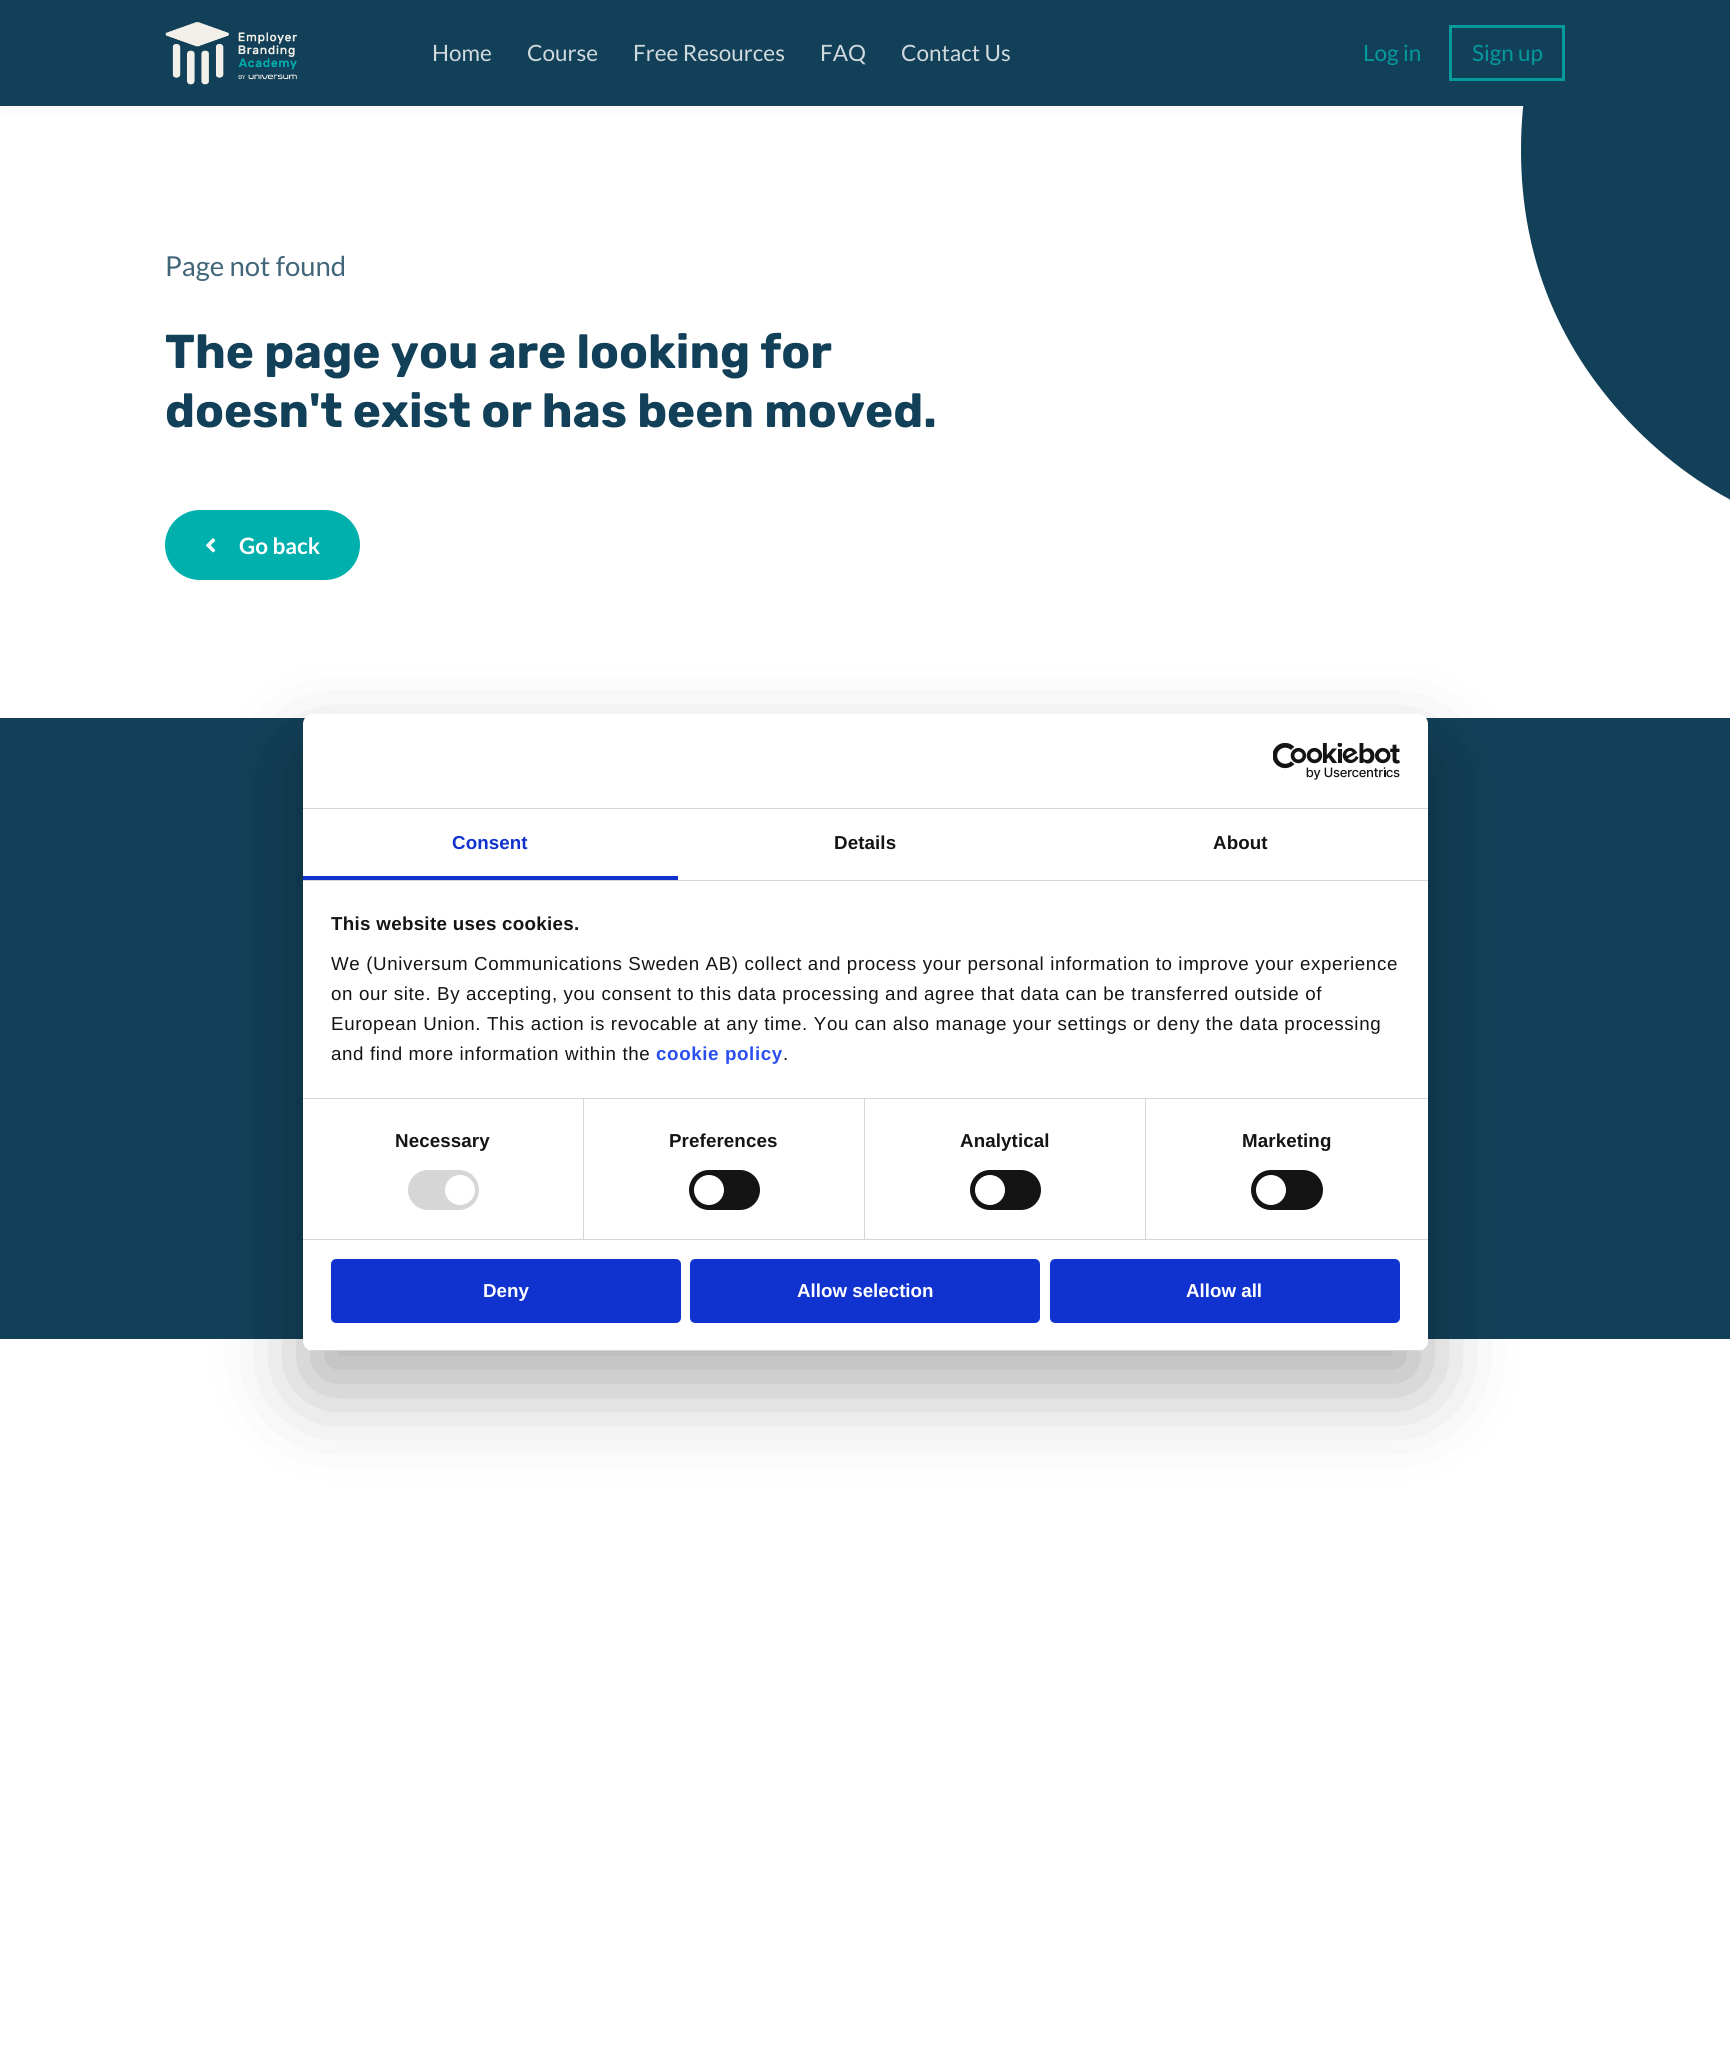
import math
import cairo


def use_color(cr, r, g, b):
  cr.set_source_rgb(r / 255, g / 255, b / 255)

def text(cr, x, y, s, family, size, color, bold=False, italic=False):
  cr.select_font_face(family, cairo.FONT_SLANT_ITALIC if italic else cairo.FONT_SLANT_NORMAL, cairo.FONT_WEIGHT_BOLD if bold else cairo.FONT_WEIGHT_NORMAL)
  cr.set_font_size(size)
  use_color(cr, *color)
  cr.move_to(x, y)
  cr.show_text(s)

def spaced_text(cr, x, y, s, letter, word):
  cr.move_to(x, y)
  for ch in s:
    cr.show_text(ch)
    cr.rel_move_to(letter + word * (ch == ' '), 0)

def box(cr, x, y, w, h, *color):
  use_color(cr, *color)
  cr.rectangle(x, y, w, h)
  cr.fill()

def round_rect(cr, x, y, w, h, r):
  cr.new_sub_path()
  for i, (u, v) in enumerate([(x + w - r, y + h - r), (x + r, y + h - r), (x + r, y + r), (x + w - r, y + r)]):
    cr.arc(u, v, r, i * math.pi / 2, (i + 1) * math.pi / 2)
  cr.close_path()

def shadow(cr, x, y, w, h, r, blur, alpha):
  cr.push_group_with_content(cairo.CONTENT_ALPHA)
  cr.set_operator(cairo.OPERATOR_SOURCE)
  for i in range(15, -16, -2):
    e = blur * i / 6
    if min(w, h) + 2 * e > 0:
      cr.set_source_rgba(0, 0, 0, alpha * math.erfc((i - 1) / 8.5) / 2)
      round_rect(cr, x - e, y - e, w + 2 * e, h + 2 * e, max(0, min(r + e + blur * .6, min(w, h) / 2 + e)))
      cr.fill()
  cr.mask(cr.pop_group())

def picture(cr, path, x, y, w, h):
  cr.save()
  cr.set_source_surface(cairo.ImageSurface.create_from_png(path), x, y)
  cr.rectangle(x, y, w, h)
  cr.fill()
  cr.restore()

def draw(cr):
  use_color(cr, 255, 255, 255)
  cr.paint()
  use_color(cr, 18, 64, 88)
  cr.new_path()
  cr.move_to(1636, -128)
  cr.curve_to(1713, -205, 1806, -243, 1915, -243)
  cr.curve_to(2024, -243, 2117, -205, 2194, -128)
  cr.curve_to(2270, -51, 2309, 41, 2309, 150)
  cr.curve_to(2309, 259, 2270, 352, 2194, 429)
  cr.curve_to(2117, 506, 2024, 544, 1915, 544)
  cr.curve_to(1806, 544, 1713, 506, 1636, 429)
  cr.curve_to(1560, 352, 1521, 259, 1521, 150)
  cr.curve_to(1521, 41, 1560, -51, 1636, -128)
  cr.close_path()
  cr.fill()
  use_color(cr, 0, 0, 0)
  shadow(cr, 0, 0, 1730, 106, 0, 9.5, 0.05)
  box(cr, 0, 0, 1728, 106, 18, 64, 88)
  picture(cr, "img_01.png", 165, 22, 132, 63)
  cr.rectangle(1450.5, 26.5, 113, 53)
  use_color(cr, 4, 154, 156)
  cr.set_line_width(3)
  cr.stroke()
  use_color(cr, 0, 176, 173)
  round_rect(cr, 165, 510, 195, 70, 35)
  cr.fill()
  picture(cr, "img_02.png", 206, 538, 10, 15)
  box(cr, 0, 718, 1730, 621, 18, 64, 88)
  use_color(cr, 0, 0, 0)
  shadow(cr, 303, 754, 1125, 637, 10, 42.5, 0.3)
  use_color(cr, 255, 255, 255)
  round_rect(cr, 303, 714, 1125, 637, 10)
  cr.fill()
  box(cr, 303, 808, 1125, 1, 214, 214, 214)
  picture(cr, "img_03.png", 1273, 743, 127, 37)
  box(cr, 303, 880, 1125, 1, 214, 214, 214)
  box(cr, 303, 876, 375, 4, 16, 50, 207)
  box(cr, 303, 1098, 1125, 1, 214, 214, 214)
  box(cr, 303, 1239, 1125, 1, 214, 214, 214)
  box(cr, 583, 1099, 1, 140, 214, 214, 214)
  round_rect(cr, 408, 1170, 71, 40, 20)
  cr.fill()
  use_color(cr, 255, 255, 255)
  cr.arc(460, 1190, 15, 0, 2 * math.pi)
  cr.fill()
  box(cr, 864, 1099, 1, 140, 214, 214, 214)
  use_color(cr, 20, 20, 20)
  round_rect(cr, 689, 1170, 71, 40, 20)
  cr.fill()
  use_color(cr, 255, 255, 255)
  cr.arc(709, 1190, 15, 0, 2 * math.pi)
  cr.fill()
  box(cr, 1145, 1099, 1, 140, 214, 214, 214)
  use_color(cr, 20, 20, 20)
  round_rect(cr, 970, 1170, 71, 40, 20)
  cr.fill()
  use_color(cr, 255, 255, 255)
  cr.arc(990, 1190, 15, 0, 2 * math.pi)
  cr.fill()
  use_color(cr, 20, 20, 20)
  round_rect(cr, 1251, 1170, 72, 40, 20)
  cr.fill()
  use_color(cr, 255, 255, 255)
  cr.arc(1271, 1190, 15, 0, 2 * math.pi)
  cr.fill()
  cr.save()
  round_rect(cr, 303, 714, 1125, 637, 10)
  cr.clip()
  box(cr, 303, 1350, 1125, 1, 214, 214, 214)
  cr.restore()
  use_color(cr, 16, 50, 207)
  round_rect(cr, 332.5, 1260.5, 347, 61, 3.5)
  cr.fill_preserve()
  cr.stroke()
  round_rect(cr, 691.5, 1260.5, 347, 61, 3.5)
  cr.fill_preserve()
  cr.stroke()
  round_rect(cr, 1051.5, 1260.5, 347, 61, 3.5)
  cr.fill_preserve()
  cr.stroke()
  text(cr, 432, 61, "Home", "Lato", 22.5, (208, 217, 222))
  text(cr, 527, 61, "Course", "Lato", 22.5, (208, 217, 222))
  text(cr, 633, 61, "Free Resources", "Lato", 22.5, (208, 217, 222))
  text(cr, 820, 61, "FAQ", "Lato", 22.5, (208, 217, 222))
  text(cr, 901, 61, "Contact Us", "Lato", 22.5, (208, 217, 222))
  text(cr, 1363, 61, "Log in", "Lato", 22.5, (4, 154, 156))
  text(cr, 1472, 61, "Sign up", "Lato", 22.5, (4, 154, 156))
  text(cr, 165, 276, "Page not found", "Lato", 27.5, (65, 102, 121))
  text(cr, 165, 368, "The page you are looking for", "Rubik", 47.5, (18, 64, 88), bold=True)
  text(cr, 165, 427, "doesn't exist or has been moved.", "Rubik", 47.5, (18, 64, 88), bold=True)
  text(cr, 239, 554, "Go back", "Lato", 22.5, (255, 255, 255), bold=True)
  cr.select_font_face("Liberation Sans", cairo.FONT_SLANT_NORMAL, cairo.FONT_WEIGHT_BOLD)
  cr.set_font_size(18.75)
  use_color(cr, 16, 50, 207)
  spaced_text(cr, 452, 849, "Consent", 0.1, 0)
  use_color(cr, 20, 20, 20)
  spaced_text(cr, 834, 849, "Details", 0.1, 0)
  spaced_text(cr, 1213, 849, "About", 0.1, 0)
  spaced_text(cr, 331, 930, "This website uses cookies.", 0.3, 0)
  cr.select_font_face("Liberation Sans")
  spaced_text(cr, 331, 970, "We (Universum Communications Sweden AB) collect and process your personal information to improve your experience", 0.62, 0)
  spaced_text(cr, 331, 1000, "on our site. By accepting, you consent to this data processing and agree that data can be transferred outside of", 0.62, 0)
  spaced_text(cr, 331, 1030, "European Union. This action is revocable at any time. You can also manage your settings or deny the data processing", 0.62, 0)
  spaced_text(cr, 331, 1060, "and find more information within the", 0.62, 0)
  cr.select_font_face("Liberation Sans", cairo.FONT_SLANT_NORMAL, cairo.FONT_WEIGHT_BOLD)
  use_color(cr, 42, 78, 239)
  spaced_text(cr, 656, 1060, "cookie policy", 0.62, 0)
  cr.select_font_face("Liberation Sans")
  use_color(cr, 20, 20, 20)
  spaced_text(cr, 783, 1060, ".", 0.62, 0)
  cr.select_font_face("Liberation Sans", cairo.FONT_SLANT_NORMAL, cairo.FONT_WEIGHT_BOLD)
  spaced_text(cr, 395, 1147, "Necessary", 0.1, 0)
  spaced_text(cr, 669, 1147, "Preferences", 0.1, 0)
  spaced_text(cr, 960, 1147, "Analytical", 0.1, 0)
  spaced_text(cr, 1242, 1147, "Marketing", 0.1, 0)
  text(cr, 483, 1297, "Deny", "Liberation Sans", 18.75, (255, 255, 255), bold=True)
  text(cr, 797, 1297, "Allow selection", "Liberation Sans", 18.75, (255, 255, 255), bold=True)
  text(cr, 1186, 1297, "Allow all", "Liberation Sans", 18.75, (255, 255, 255), bold=True)


surface = cairo.ImageSurface(cairo.FORMAT_RGB24, 1730, 2065)
cr = cairo.Context(surface)
options = cairo.FontOptions()
options.set_hint_metrics(cairo.HINT_METRICS_OFF)
options.set_hint_style(cairo.HINT_STYLE_NONE)
cr.set_font_options(options)
cr.set_miter_limit(4)
draw(cr)
surface.write_to_png("out.png")
